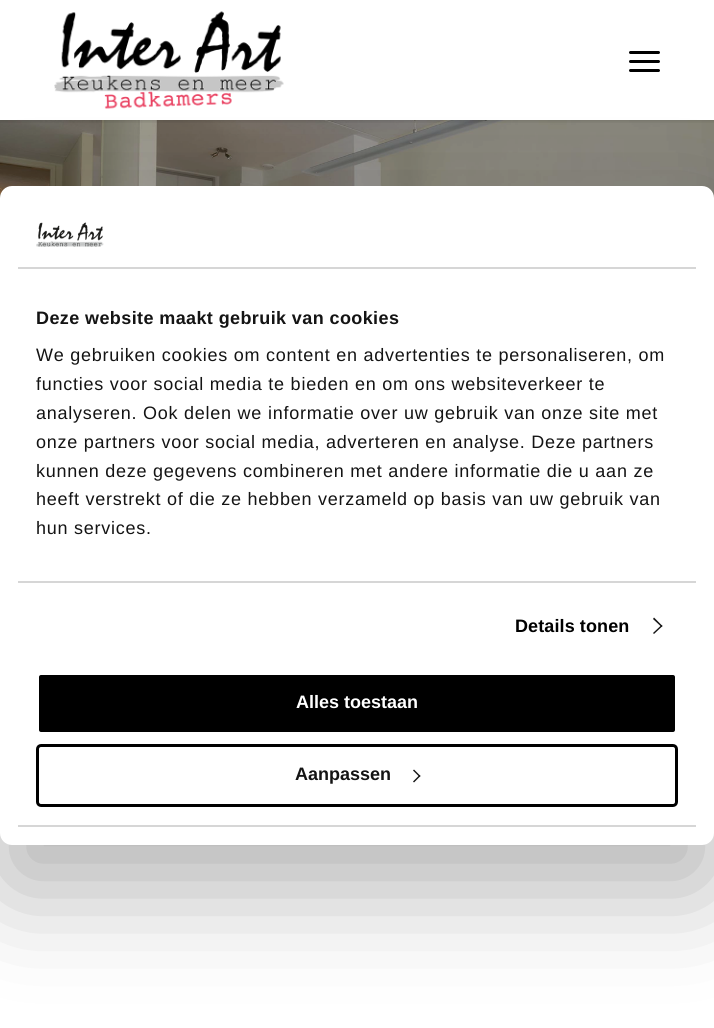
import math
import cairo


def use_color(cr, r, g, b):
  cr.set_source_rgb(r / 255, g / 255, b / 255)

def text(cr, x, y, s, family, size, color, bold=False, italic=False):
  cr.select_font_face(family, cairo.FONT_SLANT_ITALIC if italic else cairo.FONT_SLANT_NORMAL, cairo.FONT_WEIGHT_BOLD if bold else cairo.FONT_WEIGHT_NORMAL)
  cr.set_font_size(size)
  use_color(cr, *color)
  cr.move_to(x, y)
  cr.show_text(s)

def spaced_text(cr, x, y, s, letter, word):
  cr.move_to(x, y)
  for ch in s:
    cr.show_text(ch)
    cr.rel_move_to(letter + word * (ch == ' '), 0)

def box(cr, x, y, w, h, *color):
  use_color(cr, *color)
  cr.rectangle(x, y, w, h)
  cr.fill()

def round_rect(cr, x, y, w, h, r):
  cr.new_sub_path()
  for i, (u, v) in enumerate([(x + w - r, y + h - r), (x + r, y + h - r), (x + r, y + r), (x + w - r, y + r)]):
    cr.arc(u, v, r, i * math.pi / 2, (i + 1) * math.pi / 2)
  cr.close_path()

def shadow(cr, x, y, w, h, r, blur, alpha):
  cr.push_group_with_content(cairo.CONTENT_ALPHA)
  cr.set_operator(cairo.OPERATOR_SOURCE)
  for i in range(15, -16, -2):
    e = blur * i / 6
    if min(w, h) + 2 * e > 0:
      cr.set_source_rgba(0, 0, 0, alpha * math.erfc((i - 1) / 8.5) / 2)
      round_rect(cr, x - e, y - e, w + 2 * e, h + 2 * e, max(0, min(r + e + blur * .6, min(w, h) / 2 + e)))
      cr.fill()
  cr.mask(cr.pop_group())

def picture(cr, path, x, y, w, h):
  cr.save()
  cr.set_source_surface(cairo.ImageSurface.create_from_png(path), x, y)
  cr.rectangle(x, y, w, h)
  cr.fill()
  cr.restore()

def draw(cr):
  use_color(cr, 255, 255, 255)
  cr.paint()
  picture(cr, "img_02.png", 0, 120, 714, 78)
  cr.save()
  cr.rectangle(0, 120, 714, 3)
  cr.clip()
  use_color(cr, 0, 0, 0)
  shadow(cr, -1, -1, 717, 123, 0, 1.5, 0.1)
  cr.restore()
  picture(cr, "img_01.png", 54, 11, 230, 98)
  use_color(cr, 0, 0, 0)
  round_rect(cr, 629, 60, 31, 3, 1.5)
  cr.fill()
  round_rect(cr, 629, 51, 31, 3, 1.5)
  cr.fill()
  round_rect(cr, 629, 69, 31, 3, 1.5)
  cr.fill()
  use_color(cr, 0, 0, 0)
  shadow(cr, 0, 231, 714, 659, 12, 52.5, 0.3)
  use_color(cr, 255, 255, 255)
  round_rect(cr, 0, 186, 714, 659, 12)
  cr.fill()
  box(cr, 18, 267, 678, 2, 214, 214, 214)
  picture(cr, "img_03.png", 36, 222, 68, 25)
  box(cr, 18, 581, 678, 2, 214, 214, 214)
  use_color(cr, 20, 20, 20)
  cr.new_path()
  cr.move_to(654, 617.5)
  cr.line_to(662.5, 626)
  cr.line_to(661.5, 627)
  cr.line_to(653, 619)
  cr.close_path()
  cr.fill()
  cr.new_path()
  cr.move_to(661.5, 625)
  cr.line_to(662.5, 626)
  cr.line_to(654, 634)
  cr.line_to(653, 633)
  cr.close_path()
  cr.fill()
  box(cr, 18, 825, 678, 2, 214, 214, 214)
  use_color(cr, 0, 0, 0)
  round_rect(cr, 37.5, 673.5, 639, 60, 3.5)
  cr.fill_preserve()
  use_color(cr, 255, 255, 255)
  cr.set_line_width(3)
  cr.stroke()
  round_rect(cr, 37.5, 745.5, 639, 60, 3.5)
  use_color(cr, 0, 0, 0)
  cr.stroke()
  use_color(cr, 20, 20, 20)
  cr.new_path()
  cr.move_to(414, 769.5)
  cr.line_to(420.5, 776)
  cr.line_to(419.5, 777)
  cr.line_to(413, 770.5)
  cr.close_path()
  cr.fill()
  cr.new_path()
  cr.move_to(419.5, 775)
  cr.line_to(420.5, 776)
  cr.line_to(414, 782.5)
  cr.line_to(413, 781.5)
  cr.close_path()
  cr.fill()
  cr.select_font_face("Liberation Sans", cairo.FONT_SLANT_NORMAL, cairo.FONT_WEIGHT_BOLD)
  cr.set_font_size(18)
  spaced_text(cr, 36, 324, "Deze website maakt gebruik van cookies", 0.4, 0)
  cr.select_font_face("Liberation Sans")
  spaced_text(cr, 36, 361, "We gebruiken cookies om content en advertenties te personaliseren, om", 0.75, 0)
  spaced_text(cr, 36, 390, "functies voor social media te bieden en om ons websiteverkeer te", 0.75, 0)
  spaced_text(cr, 36, 419, "analyseren. Ook delen we informatie over uw gebruik van onze site met", 0.75, 0)
  spaced_text(cr, 36, 448, "onze partners voor social media, adverteren en analyse. Deze partners", 0.75, 0)
  spaced_text(cr, 36, 477, "kunnen deze gegevens combineren met andere informatie die u aan ze", 0.75, 0)
  spaced_text(cr, 36, 505, "heeft verstrekt of die ze hebben verzameld op basis van uw gebruik van", 0.75, 0)
  spaced_text(cr, 36, 534, "hun services.", 0.75, 0)
  cr.select_font_face("Liberation Sans", cairo.FONT_SLANT_NORMAL, cairo.FONT_WEIGHT_BOLD)
  use_color(cr, 0, 0, 0)
  spaced_text(cr, 515, 632, "Details tonen", 0.1, 0)
  text(cr, 296, 708, "Alles toestaan", "Liberation Sans", 18, (255, 255, 255), bold=True)
  text(cr, 295, 780, "Aanpassen", "Liberation Sans", 18, (20, 20, 20), bold=True)


surface = cairo.ImageSurface(cairo.FORMAT_RGB24, 714, 1028)
cr = cairo.Context(surface)
options = cairo.FontOptions()
options.set_hint_metrics(cairo.HINT_METRICS_OFF)
options.set_hint_style(cairo.HINT_STYLE_NONE)
cr.set_font_options(options)
cr.set_miter_limit(4)
draw(cr)
surface.write_to_png("out.png")
